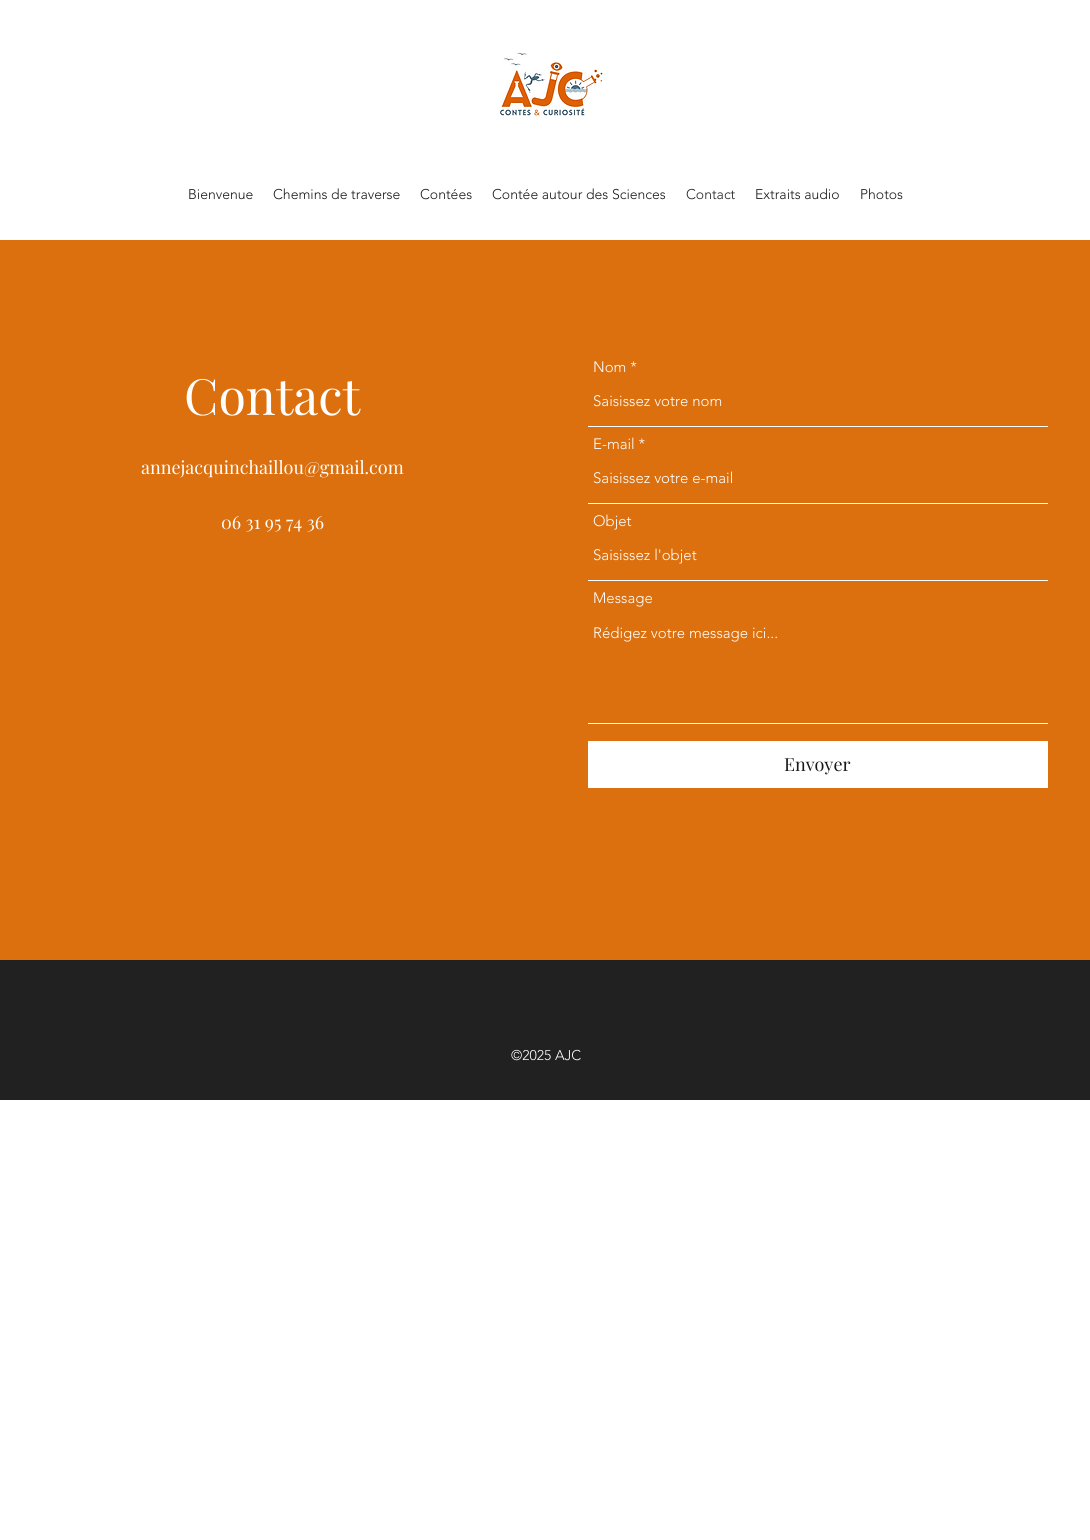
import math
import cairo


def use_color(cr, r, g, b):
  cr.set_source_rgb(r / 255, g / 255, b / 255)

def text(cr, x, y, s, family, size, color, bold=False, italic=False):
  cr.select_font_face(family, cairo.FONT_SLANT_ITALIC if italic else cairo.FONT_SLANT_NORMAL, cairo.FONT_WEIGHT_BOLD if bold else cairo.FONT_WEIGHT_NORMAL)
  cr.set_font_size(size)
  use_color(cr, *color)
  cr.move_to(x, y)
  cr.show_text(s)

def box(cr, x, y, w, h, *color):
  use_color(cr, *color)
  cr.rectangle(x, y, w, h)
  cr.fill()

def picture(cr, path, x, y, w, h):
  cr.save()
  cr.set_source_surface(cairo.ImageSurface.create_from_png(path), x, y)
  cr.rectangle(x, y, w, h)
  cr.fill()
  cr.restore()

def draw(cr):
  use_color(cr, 255, 255, 255)
  cr.paint()
  picture(cr, "img_01.png", 500, 52, 103, 64)
  box(cr, 0, 240, 1090, 720, 220, 112, 15)
  box(cr, 588, 426, 460, 1, 255, 255, 255)
  box(cr, 588, 503, 460, 1, 255, 255, 255)
  box(cr, 588, 580, 460, 1, 255, 255, 255)
  box(cr, 588, 723, 460, 1, 255, 255, 255)
  box(cr, 588, 741, 460, 47, 255, 255, 255)
  box(cr, 0, 960, 1090, 140, 33, 33, 33)
  text(cr, 188, 199, "Bienvenue", "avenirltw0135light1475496 Light", 14, (24, 24, 24))
  text(cr, 273, 199, "Chemins de traverse", "avenirltw0135light1475496 Light", 14, (24, 24, 24))
  text(cr, 420, 199, "Contées", "avenirltw0135light1475496 Light", 14, (24, 24, 24))
  text(cr, 492, 199, "Contée autour des Sciences", "avenirltw0135light1475496 Light", 14, (24, 24, 24))
  text(cr, 686, 199, "Contact", "avenirltw0135light1475496 Light", 14, (33, 33, 33))
  text(cr, 755, 199, "Extraits audio", "avenirltw0135light1475496 Light", 14, (24, 24, 24))
  text(cr, 860, 199, "Photos", "avenirltw0135light1475496 Light", 14, (24, 24, 24))
  text(cr, 184, 415, "Contact", "Playfair Display", 50, (255, 255, 255))
  text(cr, 141, 474, "annejacquinchaillou@gmail.com", "Playfair Display", 18, (255, 255, 255))
  text(cr, 221, 529, "06 31 95 74 36", "Playfair Display", 18, (255, 255, 255))
  text(cr, 593, 372, "Nom *", "avenirltw0135light1475496 Light", 15, (255, 255, 255))
  text(cr, 593, 406, "Saisissez votre nom", "avenirltw0135light1475496 Light", 15, (255, 255, 255))
  text(cr, 593, 449, "E-mail *", "avenirltw0135light1475496 Light", 15, (255, 255, 255))
  text(cr, 593, 483, "Saisissez votre e-mail", "avenirltw0135light1475496 Light", 15, (255, 255, 255))
  text(cr, 593, 526, "Objet", "avenirltw0135light1475496 Light", 15, (255, 255, 255))
  text(cr, 593, 560, "Saisissez l'objet", "avenirltw0135light1475496 Light", 15, (255, 255, 255))
  text(cr, 593, 603, "Message", "avenirltw0135light1475496 Light", 15, (255, 255, 255))
  text(cr, 593, 638, "Rédigez votre message ici...", "avenirltw0135light1475496 Light", 15, (255, 255, 255))
  text(cr, 784, 771, "Envoyer", "Playfair Display", 18, (24, 24, 24))
  text(cr, 511, 1060, "©2025 AJC", "avenirltw0135light1475496 Light", 14, (255, 255, 255))


surface = cairo.ImageSurface(cairo.FORMAT_RGB24, 1090, 1540)
cr = cairo.Context(surface)
options = cairo.FontOptions()
options.set_hint_metrics(cairo.HINT_METRICS_OFF)
options.set_hint_style(cairo.HINT_STYLE_NONE)
cr.set_font_options(options)
cr.set_miter_limit(4)
draw(cr)
surface.write_to_png("out.png")
